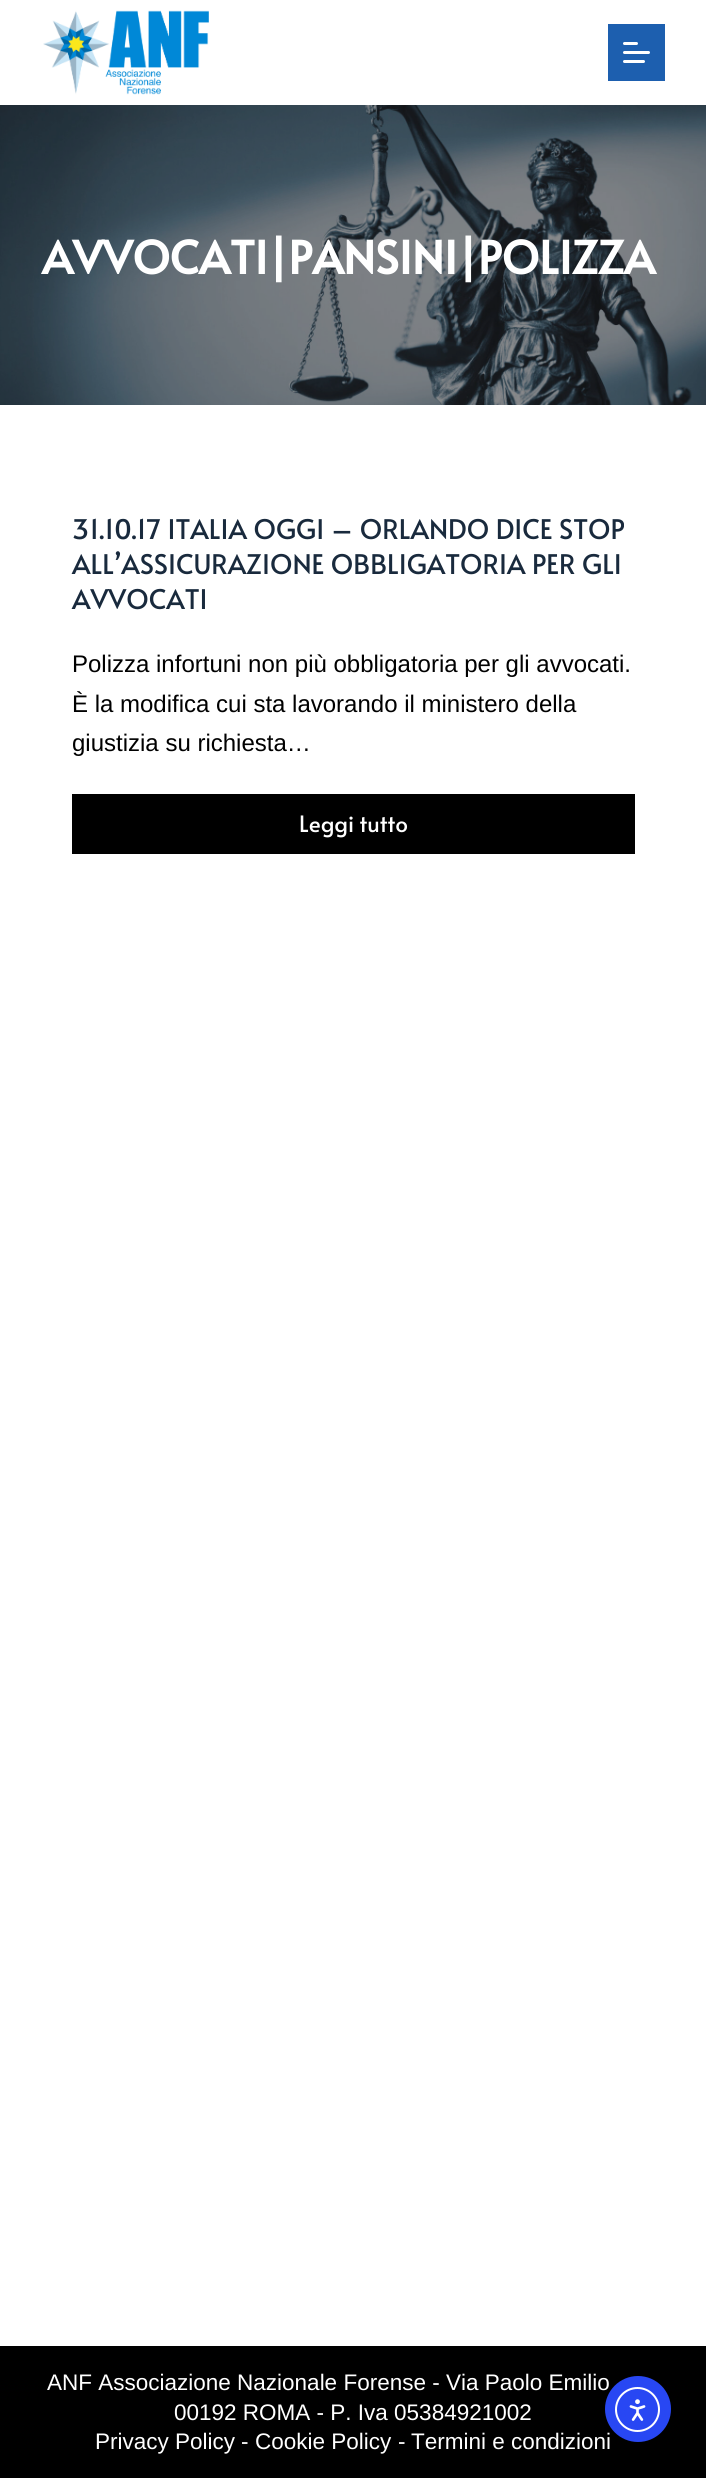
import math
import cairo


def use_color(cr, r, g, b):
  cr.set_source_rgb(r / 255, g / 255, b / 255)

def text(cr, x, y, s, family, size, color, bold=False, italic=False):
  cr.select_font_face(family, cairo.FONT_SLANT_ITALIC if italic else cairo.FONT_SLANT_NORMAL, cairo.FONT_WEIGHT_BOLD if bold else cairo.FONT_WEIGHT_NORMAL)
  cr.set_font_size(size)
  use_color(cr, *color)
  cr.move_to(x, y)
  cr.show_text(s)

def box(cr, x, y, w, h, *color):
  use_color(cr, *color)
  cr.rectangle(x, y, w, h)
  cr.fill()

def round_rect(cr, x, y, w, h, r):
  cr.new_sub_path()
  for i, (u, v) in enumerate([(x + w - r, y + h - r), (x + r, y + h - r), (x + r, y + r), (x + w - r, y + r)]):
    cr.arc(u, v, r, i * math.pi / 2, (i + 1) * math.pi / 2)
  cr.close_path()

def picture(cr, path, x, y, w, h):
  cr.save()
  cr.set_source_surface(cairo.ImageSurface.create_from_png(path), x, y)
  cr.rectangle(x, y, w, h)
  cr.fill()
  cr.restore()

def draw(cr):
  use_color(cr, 255, 255, 255)
  cr.paint()
  picture(cr, "img_01.png", 43, 10, 166, 85)
  box(cr, 608, 24, 57, 57, 29, 95, 175)
  use_color(cr, 255, 255, 255)
  round_rect(cr, 623, 42, 15, 3, 1.5)
  cr.fill()
  round_rect(cr, 623, 51, 27, 3, 1.5)
  cr.fill()
  round_rect(cr, 623, 60, 22, 3, 1.5)
  cr.fill()
  picture(cr, "img_02.png", 0, 105, 706, 300)
  box(cr, 72, 794, 563, 60, 0, 0, 0)
  box(cr, 0, 2346, 706, 132, 0, 0, 0)
  text(cr, 42, 274, "AVVOCATI|PANSINI|POLIZZA", "Alata", 45, (255, 255, 255), bold=True)
  text(cr, 72, 539, "31.10.17 ITALIA OGGI – ORLANDO DICE STOP", "Alata", 27, (25, 42, 61))
  text(cr, 72, 574, "ALL’ASSICURAZIONE OBBLIGATORIA PER GLI", "Alata", 27, (25, 42, 61))
  text(cr, 72, 609, "AVVOCATI", "Alata", 27, (25, 42, 61))
  text(cr, 72, 672, "Polizza infortuni non più obbligatoria per gli avvocati.", "Liberation Sans", 24, (0, 0, 0))
  text(cr, 72, 712, "È la modifica cui sta lavorando il ministero della", "Liberation Sans", 24, (0, 0, 0))
  text(cr, 72, 751, "giustizia su richiesta…", "Liberation Sans", 24, (0, 0, 0))
  text(cr, 299, 832, "Leggi tutto", "Alata", 22.5, (255, 255, 255))
  text(cr, 47, 2390, "ANF Associazione Nazionale Forense - Via Paolo Emilio", "Liberation Sans", 22.5, (255, 255, 255))
  text(cr, 174, 2420, "00192 ROMA - P. Iva 05384921002", "Liberation Sans", 22.5, (255, 255, 255))
  text(cr, 95, 2449, "Privacy Policy", "Liberation Sans", 22.5, (255, 255, 255))
  text(cr, 241, 2449, "-", "Liberation Sans", 22.5, (255, 255, 255))
  text(cr, 255, 2449, "Cookie Policy", "Liberation Sans", 22.5, (255, 255, 255))
  text(cr, 398, 2449, "-", "Liberation Sans", 22.5, (255, 255, 255))
  text(cr, 411, 2449, "Termini e condizioni", "Liberation Sans", 22.5, (255, 255, 255))
  use_color(cr, 40, 71, 243)
  cr.new_path()
  cr.arc(638, 2409, 33, 0, 2 * math.pi)
  cr.fill()
  cr.arc(637.5, 2409.5, 21.5, 0, 2 * math.pi)
  use_color(cr, 255, 255, 255)
  cr.stroke()
  picture(cr, "img_03.png", 629, 2399, 17, 22)


surface = cairo.ImageSurface(cairo.FORMAT_RGB24, 706, 2478)
cr = cairo.Context(surface)
options = cairo.FontOptions()
options.set_hint_metrics(cairo.HINT_METRICS_OFF)
options.set_hint_style(cairo.HINT_STYLE_NONE)
cr.set_font_options(options)
cr.set_miter_limit(4)
draw(cr)
surface.write_to_png("out.png")
